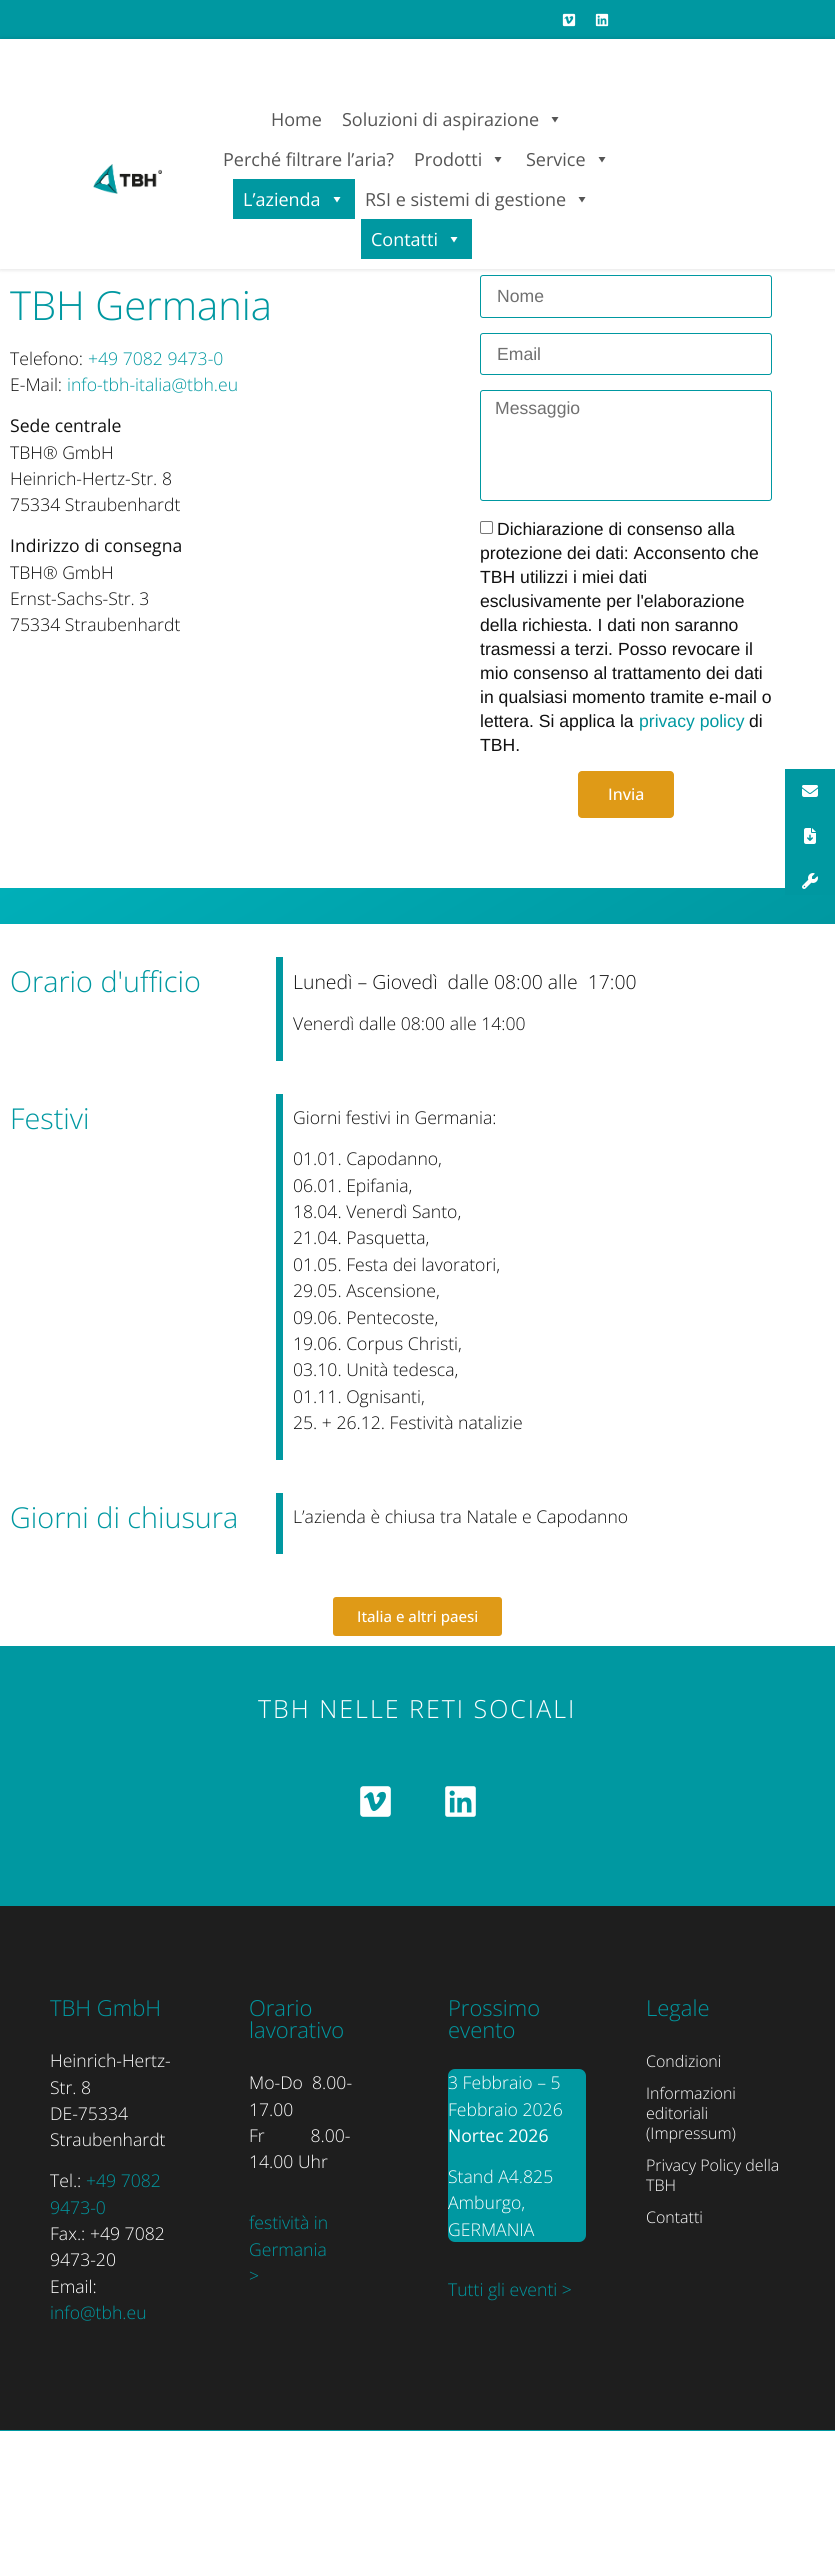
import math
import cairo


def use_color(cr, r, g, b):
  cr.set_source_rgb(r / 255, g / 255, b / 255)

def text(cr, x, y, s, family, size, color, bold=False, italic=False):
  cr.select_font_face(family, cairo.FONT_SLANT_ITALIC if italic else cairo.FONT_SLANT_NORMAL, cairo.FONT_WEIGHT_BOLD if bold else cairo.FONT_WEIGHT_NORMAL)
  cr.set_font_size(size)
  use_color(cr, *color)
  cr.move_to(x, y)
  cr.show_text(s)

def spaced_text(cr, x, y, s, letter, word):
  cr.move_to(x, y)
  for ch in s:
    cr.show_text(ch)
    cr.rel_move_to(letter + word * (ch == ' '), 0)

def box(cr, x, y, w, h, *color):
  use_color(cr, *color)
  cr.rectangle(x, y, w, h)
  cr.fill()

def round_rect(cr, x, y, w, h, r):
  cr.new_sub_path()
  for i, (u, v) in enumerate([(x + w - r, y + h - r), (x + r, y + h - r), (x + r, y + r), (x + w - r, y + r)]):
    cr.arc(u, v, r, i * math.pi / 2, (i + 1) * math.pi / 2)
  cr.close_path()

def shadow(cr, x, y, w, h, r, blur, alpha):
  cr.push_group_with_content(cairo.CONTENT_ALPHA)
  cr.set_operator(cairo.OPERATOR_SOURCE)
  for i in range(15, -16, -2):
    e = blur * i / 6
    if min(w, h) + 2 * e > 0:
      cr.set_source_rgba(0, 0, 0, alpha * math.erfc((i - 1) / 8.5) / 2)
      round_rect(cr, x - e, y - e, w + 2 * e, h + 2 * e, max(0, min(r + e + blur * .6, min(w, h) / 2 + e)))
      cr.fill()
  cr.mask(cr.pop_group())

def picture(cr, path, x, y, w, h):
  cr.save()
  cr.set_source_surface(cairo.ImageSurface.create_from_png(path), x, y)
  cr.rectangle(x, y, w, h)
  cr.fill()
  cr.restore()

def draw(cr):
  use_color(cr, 255, 255, 255)
  cr.paint()
  box(cr, 0, 0, 835, 39, 0, 152, 161)
  picture(cr, "img_01.png", 562, 13, 14, 14)
  picture(cr, "img_02.png", 595, 13, 14, 14)
  round_rect(cr, 480.5, 275.5, 291, 42, 2.5)
  cr.set_line_width(1)
  cr.stroke()
  use_color(cr, 0, 0, 0)
  shadow(cr, 0, 39, 835, 230, 0, 2.5, 0.15)
  box(cr, 0, 39, 835, 230, 255, 255, 255)
  picture(cr, "img_03.png", 93, 164, 69, 30)
  use_color(cr, 85, 85, 85)
  cr.new_path()
  cr.move_to(558.5, 117)
  cr.line_to(555, 122.5)
  cr.line_to(551.5, 117)
  cr.close_path()
  cr.fill()
  cr.new_path()
  cr.move_to(501.5, 157)
  cr.line_to(498, 162.5)
  cr.line_to(494.5, 157)
  cr.close_path()
  cr.fill()
  cr.new_path()
  cr.move_to(605.5, 157)
  cr.line_to(602, 162.5)
  cr.line_to(598.5, 157)
  cr.close_path()
  cr.fill()
  box(cr, 233, 179, 122, 40, 0, 152, 161)
  use_color(cr, 255, 255, 255)
  cr.new_path()
  cr.move_to(340.5, 197)
  cr.line_to(337, 202.5)
  cr.line_to(333.5, 197)
  cr.close_path()
  cr.fill()
  use_color(cr, 85, 85, 85)
  cr.new_path()
  cr.move_to(585.5, 197)
  cr.line_to(582, 202.5)
  cr.line_to(578.5, 197)
  cr.close_path()
  cr.fill()
  box(cr, 361, 219, 111, 40, 0, 152, 161)
  use_color(cr, 255, 255, 255)
  cr.new_path()
  cr.move_to(457.5, 237)
  cr.line_to(454, 242.5)
  cr.line_to(450.5, 237)
  cr.close_path()
  cr.fill()
  round_rect(cr, 480.5, 333.5, 291, 41, 2.5)
  use_color(cr, 0, 152, 161)
  cr.stroke()
  round_rect(cr, 480.5, 390.5, 291, 110, 2.5)
  cr.stroke()
  round_rect(cr, 480.5, 521.5, 12, 12, 1.5)
  use_color(cr, 118, 118, 118)
  cr.stroke()
  use_color(cr, 223, 154, 23)
  round_rect(cr, 578, 771, 96, 47, 4)
  cr.fill()
  gradient = cairo.LinearGradient(530, 1100, 305, 712)
  gradient.add_color_stop_rgba(0, 0, 0.596, 0.631, 1)
  gradient.add_color_stop_rgba(1, 0, 0.686, 0.722, 1)
  cr.set_source(gradient)
  cr.rectangle(0, 888, 835, 36)
  cr.fill()
  box(cr, 276, 957, 7, 104, 0, 152, 161)
  box(cr, 276, 1094, 7, 366, 0, 152, 161)
  box(cr, 276, 1493, 7, 61, 0, 152, 161)
  use_color(cr, 223, 154, 23)
  round_rect(cr, 333, 1597, 169, 39, 3)
  cr.fill()
  box(cr, 785, 769, 50, 126, 0, 152, 161)
  picture(cr, "img_04.png", 802, 785, 16, 12)
  picture(cr, "img_05.png", 804, 828, 12, 16)
  picture(cr, "img_06.png", 802, 873, 16, 16)
  box(cr, 0, 1646, 835, 260, 0, 152, 161)
  picture(cr, "img_07.png", 360, 1786, 31, 31)
  picture(cr, "img_08.png", 445, 1786, 31, 31)
  box(cr, 0, 1906, 835, 524, 30, 30, 30)
  use_color(cr, 0, 152, 161)
  round_rect(cr, 448, 2069, 138, 173, 7)
  cr.fill()
  box(cr, 0, 2430, 835, 1, 0, 152, 161)
  text(cr, 271, 126, "Home", "Open Sans", 18, (85, 85, 85))
  text(cr, 342, 126, "Soluzioni di aspirazione", "Open Sans", 18, (85, 85, 85))
  text(cr, 223, 166, "Perché filtrare l’aria?", "Open Sans", 18, (85, 85, 85))
  text(cr, 414, 166, "Prodotti", "Open Sans", 18, (85, 85, 85))
  text(cr, 526, 166, "Service", "Open Sans", 18, (85, 85, 85))
  text(cr, 243, 206, "L’azienda", "Open Sans", 18, (255, 255, 255))
  text(cr, 365, 206, "RSI e sistemi di gestione", "Open Sans", 18, (85, 85, 85))
  text(cr, 371, 246, "Contatti", "Open Sans", 18, (255, 255, 255))
  text(cr, 10, 320, "TBH Germania", "Open Sans Light", 40, (0, 152, 161))
  text(cr, 10, 365, "Telefono:", "Open Sans Light", 17.6, (16, 16, 16))
  text(cr, 88, 365, "+49 7082 9473-0", "Open Sans Light", 17.6, (0, 152, 161))
  text(cr, 10, 391, "E-Mail:", "Open Sans Light", 17.6, (16, 16, 16))
  text(cr, 67, 391, "info-tbh-italia@tbh.eu", "Open Sans Light", 17.6, (0, 152, 161))
  text(cr, 10, 432, "Sede centrale", "Open Sans", 17.6, (16, 16, 16))
  text(cr, 10, 459, "TBH® GmbH", "Open Sans Light", 17.6, (16, 16, 16))
  text(cr, 10, 485, "Heinrich-Hertz-Str. 8", "Open Sans Light", 17.6, (16, 16, 16))
  text(cr, 10, 511, "75334 Straubenhardt", "Open Sans Light", 17.6, (16, 16, 16))
  text(cr, 10, 552, "Indirizzo di consegna", "Open Sans", 17.6, (16, 16, 16))
  text(cr, 10, 579, "TBH® GmbH", "Open Sans Light", 17.6, (16, 16, 16))
  text(cr, 10, 605, "Ernst-Sachs-Str. 3", "Open Sans Light", 17.6, (16, 16, 16))
  text(cr, 10, 631, "75334 Straubenhardt", "Open Sans Light", 17.6, (16, 16, 16))
  text(cr, 497, 302, "Nome", "Liberation Sans", 17.6, (112, 112, 112))
  text(cr, 497, 360, "Email", "Liberation Sans", 17.6, (112, 112, 112))
  text(cr, 495, 414, "Messaggio", "Liberation Sans", 17.6, (112, 112, 112))
  text(cr, 497, 535, "Dichiarazione di consenso alla", "Liberation Sans", 17.6, (16, 16, 16))
  text(cr, 480, 559, "protezione dei dati: Acconsento che", "Liberation Sans", 17.6, (16, 16, 16))
  text(cr, 480, 583, "TBH utilizzi i miei dati", "Liberation Sans", 17.6, (16, 16, 16))
  text(cr, 480, 607, "esclusivamente per l'elaborazione", "Liberation Sans", 17.6, (16, 16, 16))
  text(cr, 480, 631, "della richiesta. I dati non saranno", "Liberation Sans", 17.6, (16, 16, 16))
  text(cr, 480, 655, "trasmessi a terzi. Posso revocare il", "Liberation Sans", 17.6, (16, 16, 16))
  text(cr, 480, 679, "mio consenso al trattamento dei dati", "Liberation Sans", 17.6, (16, 16, 16))
  text(cr, 480, 703, "in qualsiasi momento tramite e-mail o", "Liberation Sans", 17.6, (16, 16, 16))
  text(cr, 480, 727, "lettera. Si applica la", "Liberation Sans", 17.6, (16, 16, 16))
  text(cr, 639, 727, "privacy policy", "Liberation Sans", 17.6, (0, 152, 161))
  text(cr, 749, 727, "di", "Liberation Sans", 17.6, (16, 16, 16))
  text(cr, 480, 751, "TBH.", "Liberation Sans", 17.6, (16, 16, 16))
  text(cr, 608, 800, "Invia", "Open Sans Medium", 16, (255, 255, 255))
  text(cr, 10, 992, "Orario d'ufficio", "Open Sans Light", 28.75, (0, 152, 161))
  text(cr, 293, 989, "Lunedì – Giovedì  dalle 08:00 alle  17:00", "Open Sans Light", 19.4, (16, 16, 16))
  text(cr, 293, 1030, "Venerdì dalle 08:00 alle 14:00", "Open Sans Light", 17.6, (16, 16, 16))
  text(cr, 10, 1129, "Festivi", "Open Sans Light", 28.75, (0, 152, 161))
  text(cr, 293, 1124, "Giorni festivi in Germania:", "Open Sans Light", 17.6, (16, 16, 16))
  text(cr, 293, 1165, "01.01. Capodanno,", "Open Sans Light", 17.6, (16, 16, 16))
  text(cr, 293, 1192, "06.01. Epifania,", "Open Sans Light", 17.6, (16, 16, 16))
  text(cr, 293, 1218, "18.04. Venerdì Santo,", "Open Sans Light", 17.6, (16, 16, 16))
  text(cr, 293, 1244, "21.04. Pasquetta,", "Open Sans Light", 17.6, (16, 16, 16))
  text(cr, 293, 1271, "01.05. Festa dei lavoratori,", "Open Sans Light", 17.6, (16, 16, 16))
  text(cr, 293, 1297, "29.05. Ascensione,", "Open Sans Light", 17.6, (16, 16, 16))
  text(cr, 293, 1324, "09.06. Pentecoste,", "Open Sans Light", 17.6, (16, 16, 16))
  text(cr, 293, 1350, "19.06. Corpus Christi,", "Open Sans Light", 17.6, (16, 16, 16))
  text(cr, 293, 1376, "03.10. Unità tedesca,", "Open Sans Light", 17.6, (16, 16, 16))
  text(cr, 293, 1403, "01.11. Ognisanti,", "Open Sans Light", 17.6, (16, 16, 16))
  text(cr, 293, 1429, "25. + 26.12. Festività natalizie", "Open Sans Light", 17.6, (16, 16, 16))
  text(cr, 10, 1528, "Giorni di chiusura", "Open Sans Light", 28.75, (0, 152, 161))
  text(cr, 293, 1523, "L’azienda è chiusa tra Natale e Capodanno", "Open Sans Light", 17.6, (16, 16, 16))
  text(cr, 357, 1622, "Italia e altri paesi", "Open Sans Medium", 15, (255, 255, 255))
  cr.select_font_face("Open Sans Light")
  cr.set_font_size(25)
  spaced_text(cr, 258, 1718, "TBH NELLE RETI SOCIALI", 2, 0)
  text(cr, 50, 2016, "TBH GmbH", "Open Sans Light", 22, (0, 152, 161))
  text(cr, 50, 2067, "Heinrich-Hertz-", "Open Sans Light", 17.6, (255, 255, 255))
  text(cr, 50, 2094, "Str. 8", "Open Sans Light", 17.6, (255, 255, 255))
  text(cr, 50, 2120, "DE-75334", "Open Sans Light", 17.6, (255, 255, 255))
  text(cr, 50, 2146, "Straubenhardt", "Open Sans Light", 17.6, (255, 255, 255))
  text(cr, 50, 2187, "Tel.:", "Open Sans Light", 17.6, (255, 255, 255))
  text(cr, 86, 2187, "+49 7082", "Open Sans Light", 17.6, (0, 152, 161))
  text(cr, 50, 2214, "9473-0", "Open Sans Light", 17.6, (0, 152, 161))
  text(cr, 50, 2240, "Fax.: +49 7082", "Open Sans Light", 17.6, (255, 255, 255))
  text(cr, 50, 2266, "9473-20", "Open Sans Light", 17.6, (255, 255, 255))
  text(cr, 50, 2293, "Email:", "Open Sans Light", 17.6, (255, 255, 255))
  text(cr, 50, 2319, "info@tbh.eu", "Open Sans Light", 17.6, (0, 152, 161))
  text(cr, 249, 2016, "Orario", "Open Sans Light", 22, (0, 152, 161))
  text(cr, 249, 2038, "lavorativo", "Open Sans Light", 22, (0, 152, 161))
  text(cr, 249, 2089, "Mo-Do  8.00-", "Open Sans Light", 17.6, (255, 255, 255))
  text(cr, 249, 2116, "17.00", "Open Sans Light", 17.6, (255, 255, 255))
  text(cr, 249, 2142, "Fr          8.00-", "Open Sans Light", 17.6, (255, 255, 255))
  text(cr, 249, 2168, "14.00 Uhr", "Open Sans Light", 17.6, (255, 255, 255))
  text(cr, 249, 2229, "festività in", "Open Sans Light", 17.6, (0, 152, 161))
  text(cr, 249, 2256, "Germania", "Open Sans Light", 17.6, (0, 152, 161))
  text(cr, 249, 2282, ">", "Open Sans Light", 17.6, (0, 152, 161))
  text(cr, 448, 2016, "Prossimo", "Open Sans Light", 22, (0, 152, 161))
  text(cr, 448, 2038, "evento", "Open Sans Light", 22, (0, 152, 161))
  text(cr, 448, 2089, "3 Febbraio – 5", "Open Sans Light", 17.6, (255, 255, 255))
  text(cr, 448, 2116, "Febbraio 2026", "Open Sans Light", 17.6, (255, 255, 255))
  text(cr, 448, 2142, "Nortec 2026", "Open Sans", 17.6, (255, 255, 255))
  text(cr, 448, 2183, "Stand A4.825", "Open Sans Light", 17.6, (255, 255, 255))
  text(cr, 448, 2209, "Amburgo,", "Open Sans Light", 17.6, (255, 255, 255))
  text(cr, 448, 2236, "GERMANIA", "Open Sans Light", 17.6, (255, 255, 255))
  text(cr, 448, 2296, "Tutti gli eventi >", "Open Sans Light", 17.6, (0, 152, 161))
  text(cr, 646, 2016, "Legale", "Open Sans Light", 22, (0, 152, 161))
  text(cr, 646, 2067, "Condizioni", "Open Sans Light", 16, (255, 255, 255))
  text(cr, 646, 2099, "Informazioni", "Open Sans Light", 16, (255, 255, 255))
  text(cr, 646, 2119, "editoriali", "Open Sans Light", 16, (255, 255, 255))
  text(cr, 646, 2139, "(Impressum)", "Open Sans Light", 16, (255, 255, 255))
  text(cr, 646, 2171, "Privacy Policy della", "Open Sans Light", 16, (255, 255, 255))
  text(cr, 646, 2191, "TBH", "Open Sans Light", 16, (255, 255, 255))
  text(cr, 646, 2223, "Contatti", "Open Sans Light", 16, (255, 255, 255))


surface = cairo.ImageSurface(cairo.FORMAT_RGB24, 835, 2563)
cr = cairo.Context(surface)
options = cairo.FontOptions()
options.set_hint_metrics(cairo.HINT_METRICS_OFF)
options.set_hint_style(cairo.HINT_STYLE_NONE)
cr.set_font_options(options)
cr.set_miter_limit(4)
draw(cr)
surface.write_to_png("out.png")
